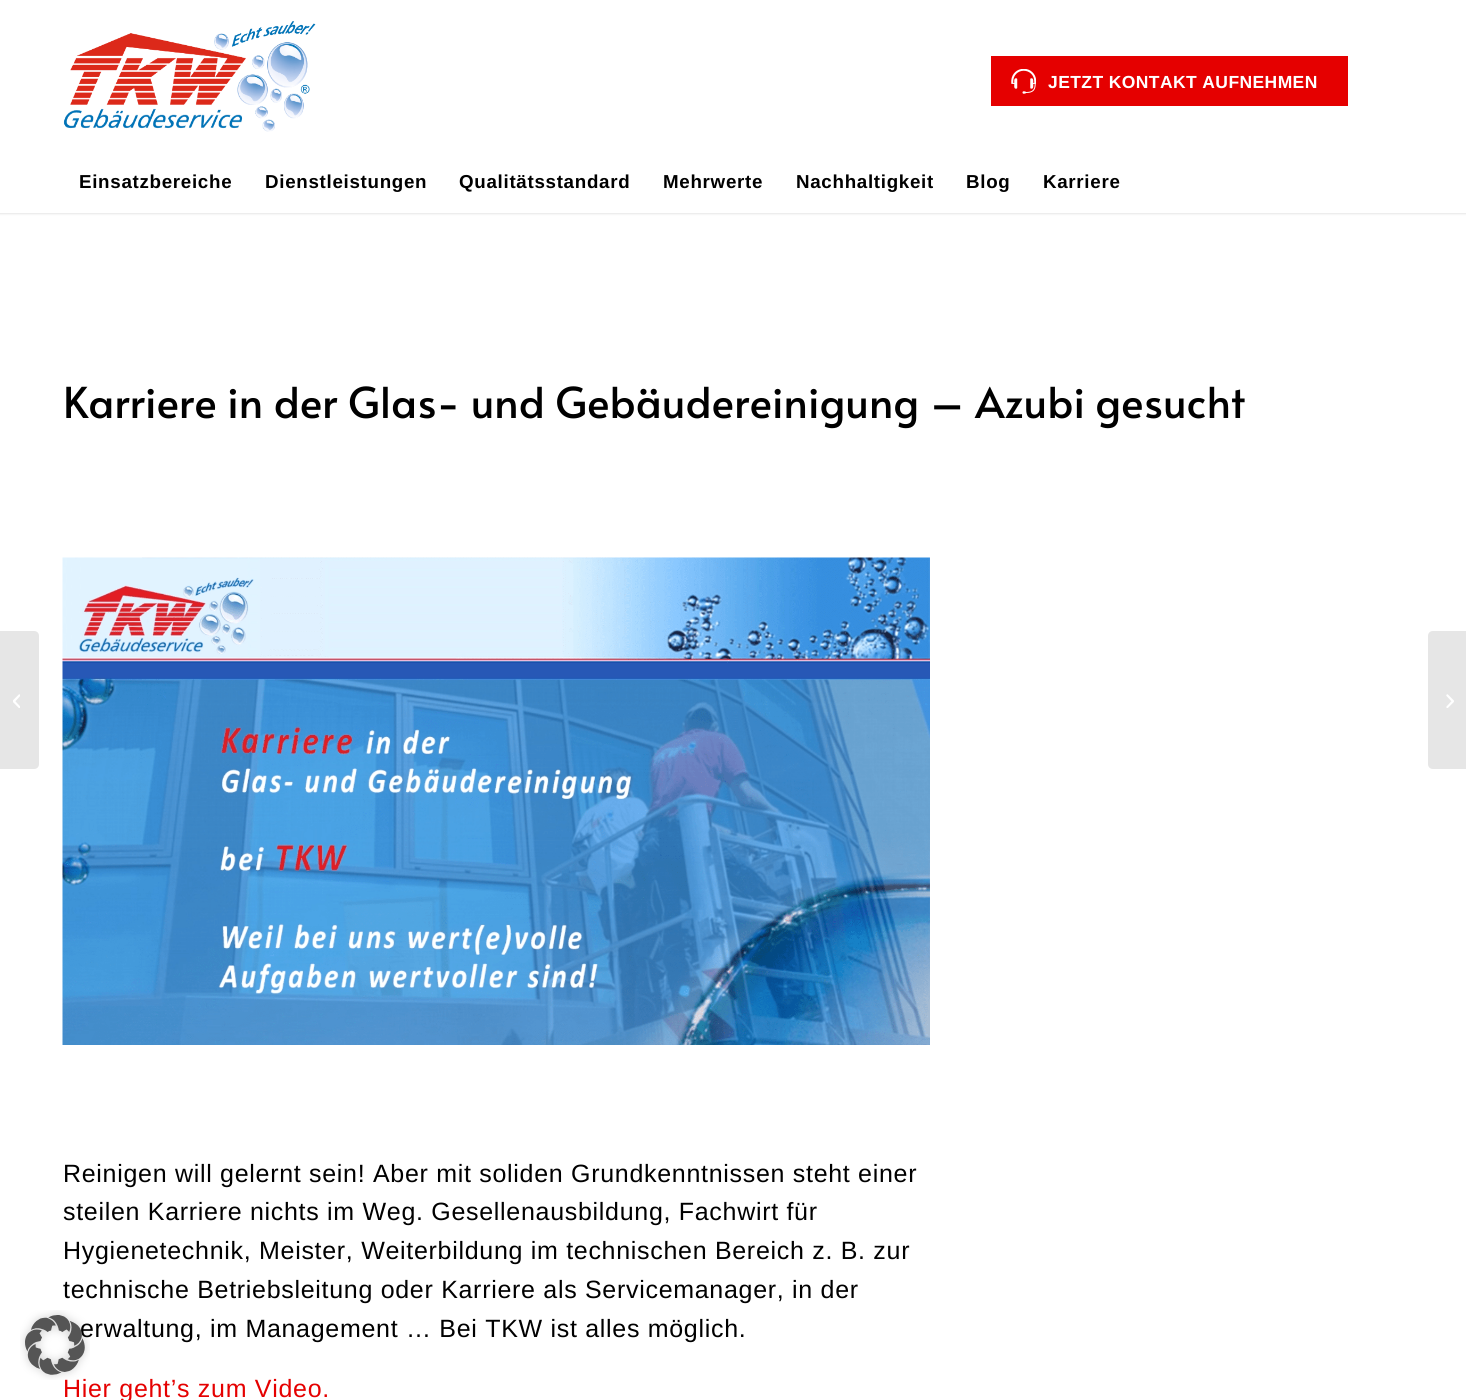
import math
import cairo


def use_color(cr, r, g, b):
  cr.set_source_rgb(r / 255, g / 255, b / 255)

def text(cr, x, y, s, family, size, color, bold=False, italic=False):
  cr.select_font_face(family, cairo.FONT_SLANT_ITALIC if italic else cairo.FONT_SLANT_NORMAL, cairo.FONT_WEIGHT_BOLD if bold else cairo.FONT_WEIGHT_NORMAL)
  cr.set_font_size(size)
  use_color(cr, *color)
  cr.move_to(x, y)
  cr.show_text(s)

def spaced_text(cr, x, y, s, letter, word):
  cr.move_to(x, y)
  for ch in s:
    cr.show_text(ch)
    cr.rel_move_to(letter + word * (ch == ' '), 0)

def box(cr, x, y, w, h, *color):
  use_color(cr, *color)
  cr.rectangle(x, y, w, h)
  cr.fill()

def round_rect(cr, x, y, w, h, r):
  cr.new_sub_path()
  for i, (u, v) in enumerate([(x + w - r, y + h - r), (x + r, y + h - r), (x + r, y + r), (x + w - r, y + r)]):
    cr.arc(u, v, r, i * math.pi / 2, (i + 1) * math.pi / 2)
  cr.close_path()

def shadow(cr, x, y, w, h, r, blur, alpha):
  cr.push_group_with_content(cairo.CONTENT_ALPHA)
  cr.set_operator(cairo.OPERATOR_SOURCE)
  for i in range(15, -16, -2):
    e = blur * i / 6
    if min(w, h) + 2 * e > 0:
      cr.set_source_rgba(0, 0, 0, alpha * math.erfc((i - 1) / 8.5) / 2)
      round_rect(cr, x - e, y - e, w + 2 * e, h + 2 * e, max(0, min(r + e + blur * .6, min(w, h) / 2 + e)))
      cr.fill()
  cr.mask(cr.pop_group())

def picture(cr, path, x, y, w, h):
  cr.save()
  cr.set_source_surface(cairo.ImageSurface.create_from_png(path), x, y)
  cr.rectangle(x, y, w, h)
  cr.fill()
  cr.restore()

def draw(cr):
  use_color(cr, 255, 255, 255)
  cr.paint()
  use_color(cr, 0, 0, 0)
  shadow(cr, -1, -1, 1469, 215, 0, 1, 0.1)
  box(cr, 0, 0, 1466, 213, 255, 255, 255)
  picture(cr, "img_02.png", 63, 21, 253, 111)
  box(cr, 991, 56, 357, 50, 229, 0, 0)
  picture(cr, "img_03.png", 1011, 69, 25, 25)
  use_color(cr, 230, 230, 230)
  cr.new_path()
  cr.move_to(0, 631)
  cr.line_to(34, 631)
  cr.curve_to(37, 631, 39, 633, 39, 636)
  cr.line_to(39, 764)
  cr.curve_to(39, 767, 37, 769, 34, 769)
  cr.line_to(0, 769)
  cr.close_path()
  cr.fill()
  picture(cr, "img_04.png", 13, 694, 7, 14)
  picture(cr, "img_05.png", 62, 557, 868, 488)
  cr.new_path()
  cr.move_to(1433, 631)
  cr.line_to(1466, 631)
  cr.line_to(1466, 769)
  cr.line_to(1433, 769)
  cr.curve_to(1430, 769, 1428, 767, 1428, 764)
  cr.line_to(1428, 636)
  cr.curve_to(1428, 633, 1430, 631, 1433, 631)
  cr.close_path()
  cr.fill()
  picture(cr, "img_06.png", 1446, 694, 8, 14)
  cr.select_font_face("Liberation Sans", cairo.FONT_SLANT_NORMAL, cairo.FONT_WEIGHT_BOLD)
  cr.set_font_size(17.5)
  use_color(cr, 255, 255, 255)
  spaced_text(cr, 1048, 88, "JETZT KONTAKT AUFNEHMEN", 0.4, 0)
  cr.set_font_size(18.75)
  use_color(cr, 0, 0, 0)
  spaced_text(cr, 79, 188, "Einsatzbereiche", 0.7, 0)
  spaced_text(cr, 265, 188, "Dienstleistungen", 0.7, 0)
  spaced_text(cr, 459, 188, "Qualitätsstandard", 0.7, 0)
  spaced_text(cr, 663, 188, "Mehrwerte", 0.7, 0)
  spaced_text(cr, 796, 188, "Nachhaltigkeit", 0.7, 0)
  spaced_text(cr, 966, 188, "Blog", 0.7, 0)
  spaced_text(cr, 1043, 188, "Karriere", 0.7, 0)
  text(cr, 63, 418, "Karriere in der Glas- und Gebäudereinigung – Azubi gesucht", "Alata", 42.5, (0, 0, 0))
  cr.select_font_face("Liberation Sans")
  cr.set_font_size(25)
  spaced_text(cr, 63, 1182, "Reinigen will gelernt sein! Aber mit soliden Grundkenntnissen steht einer", 0.7, 0)
  spaced_text(cr, 63, 1220, "steilen Karriere nichts im Weg. Gesellenausbildung, Fachwirt für", 0.7, 0)
  spaced_text(cr, 63, 1259, "Hygienetechnik, Meister, Weiterbildung im technischen Bereich z. B. zur", 0.7, 0)
  spaced_text(cr, 63, 1298, "technische Betriebsleitung oder Karriere als Servicemanager, in der", 0.7, 0)
  spaced_text(cr, 80, 1337, "erwaltung, im Management … Bei TKW ist alles möglich.", 0.7, 0)
  use_color(cr, 229, 0, 0)
  spaced_text(cr, 63, 1397, "Hier geht’s zum Video.", 0.7, 0)
  picture(cr, "img_01.png", 20, 1310, 70, 70)


surface = cairo.ImageSurface(cairo.FORMAT_RGB24, 1466, 1400)
cr = cairo.Context(surface)
options = cairo.FontOptions()
options.set_hint_metrics(cairo.HINT_METRICS_OFF)
options.set_hint_style(cairo.HINT_STYLE_NONE)
cr.set_font_options(options)
cr.set_miter_limit(4)
draw(cr)
surface.write_to_png("out.png")
